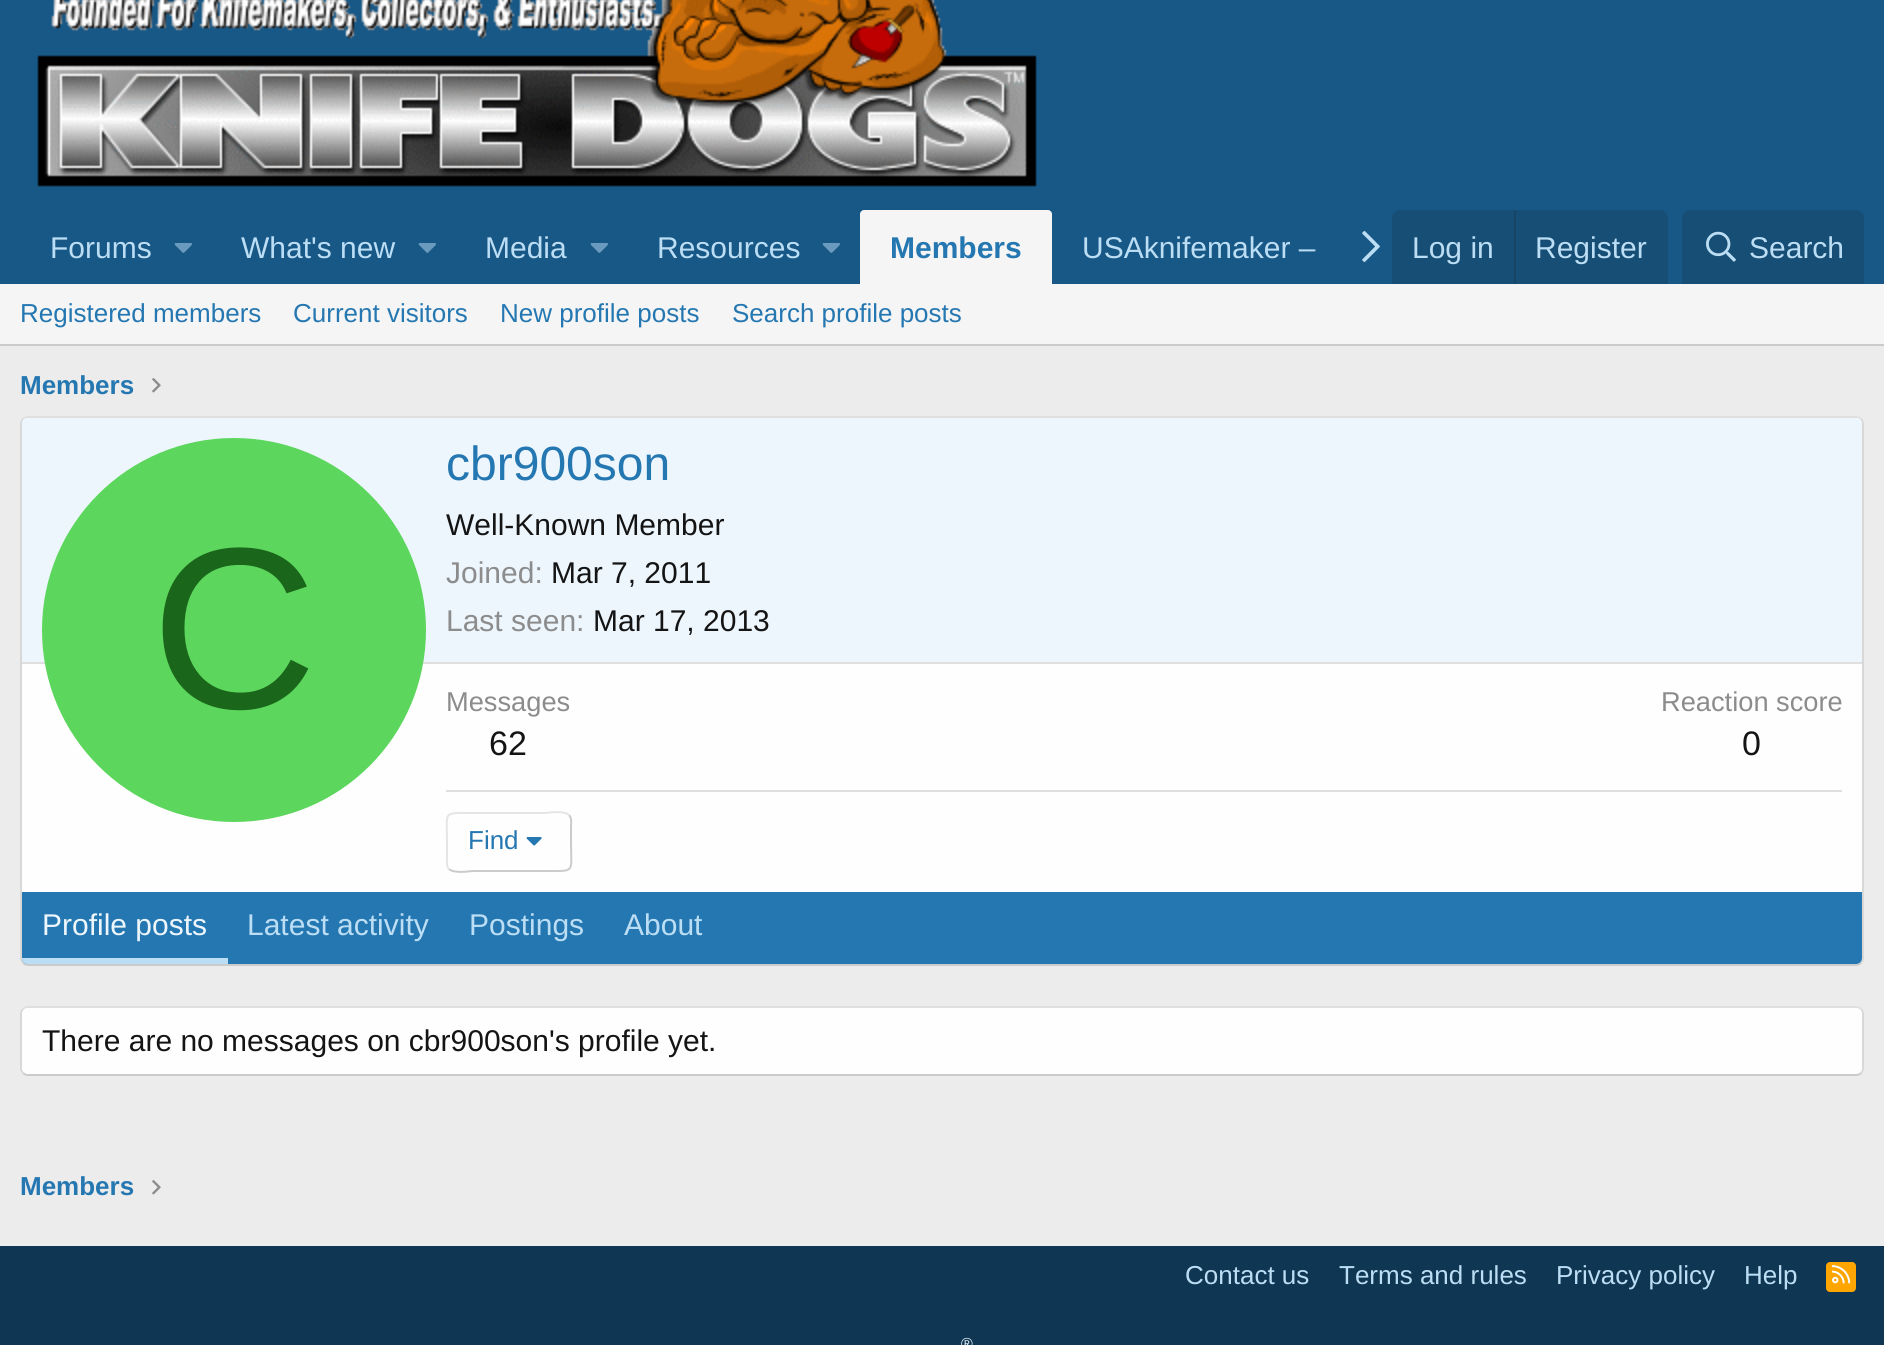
import math
import cairo


def use_color(cr, r, g, b):
  cr.set_source_rgb(r / 255, g / 255, b / 255)

def text(cr, x, y, s, family, size, color, bold=False, italic=False):
  cr.select_font_face(family, cairo.FONT_SLANT_ITALIC if italic else cairo.FONT_SLANT_NORMAL, cairo.FONT_WEIGHT_BOLD if bold else cairo.FONT_WEIGHT_NORMAL)
  cr.set_font_size(size)
  use_color(cr, *color)
  cr.move_to(x, y)
  cr.show_text(s)

def box(cr, x, y, w, h, *color):
  use_color(cr, *color)
  cr.rectangle(x, y, w, h)
  cr.fill()

def round_rect(cr, x, y, w, h, r):
  cr.new_sub_path()
  for i, (u, v) in enumerate([(x + w - r, y + h - r), (x + r, y + h - r), (x + r, y + r), (x + w - r, y + r)]):
    cr.arc(u, v, r, i * math.pi / 2, (i + 1) * math.pi / 2)
  cr.close_path()

def picture(cr, path, x, y, w, h):
  cr.save()
  cr.set_source_surface(cairo.ImageSurface.create_from_png(path), x, y)
  cr.rectangle(x, y, w, h)
  cr.fill()
  cr.restore()

def draw(cr):
  use_color(cr, 236, 236, 236)
  cr.paint()
  box(cr, 0, 0, 1884, 284, 24, 88, 134)
  picture(cr, "img_01.png", 37, 0, 1000, 187)
  picture(cr, "img_02.png", 174, 243, 18, 10)
  picture(cr, "img_02.png", 418, 243, 18, 10)
  picture(cr, "img_02.png", 590, 243, 18, 10)
  picture(cr, "img_02.png", 822, 243, 18, 10)
  use_color(cr, 245, 245, 245)
  cr.new_path()
  cr.move_to(864, 210)
  cr.line_to(1048, 210)
  cr.curve_to(1050, 210, 1052, 212, 1052, 214)
  cr.line_to(1052, 284)
  cr.line_to(860, 284)
  cr.line_to(860, 214)
  cr.curve_to(860, 212, 862, 210, 864, 210)
  cr.close_path()
  cr.fill()
  picture(cr, "img_03.png", 1362, 231, 18, 31)
  use_color(cr, 23, 78, 117)
  cr.new_path()
  cr.move_to(1400, 210)
  cr.line_to(1660, 210)
  cr.curve_to(1664.5, 210, 1668, 213.5, 1668, 218)
  cr.line_to(1668, 284)
  cr.line_to(1392, 284)
  cr.line_to(1392, 218)
  cr.curve_to(1392, 213.5, 1395.5, 210, 1400, 210)
  cr.close_path()
  cr.fill()
  box(cr, 1514, 210, 2, 74, 23, 69, 102)
  use_color(cr, 23, 78, 117)
  cr.new_path()
  cr.move_to(1690, 210)
  cr.line_to(1856, 210)
  cr.curve_to(1860.5, 210, 1864, 213.5, 1864, 218)
  cr.line_to(1864, 284)
  cr.line_to(1682, 284)
  cr.line_to(1682, 218)
  cr.curve_to(1682, 213.5, 1685.5, 210, 1690, 210)
  cr.close_path()
  cr.fill()
  picture(cr, "img_04.png", 1706, 231, 30, 31)
  box(cr, 0, 284, 1884, 60, 245, 245, 245)
  box(cr, 0, 344, 1884, 2, 203, 203, 203)
  picture(cr, "img_05.png", 152, 378, 9, 15)
  use_color(cr, 254, 254, 254)
  round_rect(cr, 20, 416, 1844, 550, 8)
  cr.fill()
  cr.new_path()
  cr.move_to(23, 419)
  cr.curve_to(24.5, 417.5, 26, 417, 28, 417)
  cr.line_to(1856, 417)
  cr.curve_to(1858, 417, 1859.5, 417.5, 1861, 419)
  use_color(cr, 223, 223, 223)
  cr.stroke()
  cr.new_path()
  cr.move_to(1861, 419)
  cr.curve_to(1862.5, 420.5, 1863, 422, 1863, 424)
  cr.line_to(1863, 958)
  cr.curve_to(1863, 960, 1862.5, 961.5, 1861, 963)
  use_color(cr, 216, 216, 216)
  cr.stroke()
  cr.new_path()
  cr.move_to(1861, 963)
  cr.curve_to(1859.5, 964.5, 1858, 965, 1856, 965)
  cr.line_to(28, 965)
  cr.curve_to(26, 965, 24.5, 964.5, 23, 963)
  use_color(cr, 203, 203, 203)
  cr.stroke()
  cr.new_path()
  cr.move_to(23, 963)
  cr.curve_to(21.5, 961.5, 21, 960, 21, 958)
  cr.line_to(21, 424)
  cr.curve_to(21, 422, 21.5, 420.5, 23, 419)
  use_color(cr, 216, 216, 216)
  cr.stroke()
  use_color(cr, 237, 246, 253)
  cr.new_path()
  cr.move_to(28, 418)
  cr.line_to(1856, 418)
  cr.curve_to(1859.5, 418, 1862, 420.5, 1862, 424)
  cr.line_to(1862, 664)
  cr.line_to(22, 664)
  cr.line_to(22, 424)
  cr.curve_to(22, 420.5, 24.5, 418, 28, 418)
  cr.close_path()
  cr.fill()
  box(cr, 22, 662, 1840, 2, 223, 223, 223)
  use_color(cr, 92, 214, 92)
  cr.arc(234, 630, 192, 0, 2 * math.pi)
  cr.fill()
  box(cr, 446, 790, 1396, 2, 223, 223, 223)
  cr.new_path()
  cr.move_to(569, 815)
  cr.curve_to(572, 818, 571, 823.5, 571, 827.5)
  cr.line_to(571, 842)
  cr.curve_to(571, 873.5, 576, 871, 545.5, 871)
  cr.line_to(472.5, 871)
  cr.curve_to(471.5, 871, 454, 874, 449, 869)
  use_color(cr, 203, 203, 203)
  cr.stroke()
  cr.new_path()
  cr.move_to(449, 869)
  cr.curve_to(446, 866, 447, 860.5, 447, 856.5)
  cr.line_to(447, 842)
  cr.curve_to(447, 810.5, 442, 813, 472.5, 813)
  cr.line_to(545.5, 813)
  cr.curve_to(546.5, 813, 564, 810, 569, 815)
  use_color(cr, 229, 229, 229)
  cr.stroke()
  picture(cr, "img_06.png", 526, 837, 16, 9)
  use_color(cr, 37, 119, 177)
  cr.new_path()
  cr.move_to(22, 892)
  cr.line_to(1862, 892)
  cr.line_to(1862, 958)
  cr.curve_to(1862, 961.5, 1859.5, 964, 1856, 964)
  cr.line_to(28, 964)
  cr.curve_to(24.5, 964, 22, 961.5, 22, 958)
  cr.close_path()
  cr.fill()
  use_color(cr, 188, 222, 245)
  cr.new_path()
  cr.move_to(22, 958)
  cr.line_to(228, 958)
  cr.line_to(228, 964)
  cr.line_to(28, 964)
  cr.curve_to(24.5, 964, 22, 961.5, 22, 958)
  cr.close_path()
  cr.fill()
  use_color(cr, 254, 254, 254)
  round_rect(cr, 20, 1006, 1844, 70, 8)
  cr.fill()
  cr.new_path()
  cr.move_to(23, 1009)
  cr.curve_to(24.5, 1007.5, 26, 1007, 28, 1007)
  cr.line_to(1856, 1007)
  cr.curve_to(1858, 1007, 1859.5, 1007.5, 1861, 1009)
  use_color(cr, 223, 223, 223)
  cr.stroke()
  cr.new_path()
  cr.move_to(1861, 1009)
  cr.curve_to(1862.5, 1010.5, 1863, 1012, 1863, 1014)
  cr.line_to(1863, 1068)
  cr.curve_to(1863, 1070, 1862.5, 1071.5, 1861, 1073)
  use_color(cr, 216, 216, 216)
  cr.stroke()
  cr.new_path()
  cr.move_to(1861, 1073)
  cr.curve_to(1859.5, 1074.5, 1858, 1075, 1856, 1075)
  cr.line_to(28, 1075)
  cr.curve_to(26, 1075, 24.5, 1074.5, 23, 1073)
  use_color(cr, 203, 203, 203)
  cr.stroke()
  cr.new_path()
  cr.move_to(23, 1073)
  cr.curve_to(21.5, 1071.5, 21, 1070, 21, 1068)
  cr.line_to(21, 1014)
  cr.curve_to(21, 1012, 21.5, 1010.5, 23, 1009)
  use_color(cr, 216, 216, 216)
  cr.stroke()
  picture(cr, "img_05.png", 152, 1180, 9, 15)
  box(cr, 0, 1246, 1884, 99, 15, 54, 82)
  use_color(cr, 255, 165, 0)
  round_rect(cr, 1826, 1262, 30, 30, 4)
  cr.fill()
  picture(cr, "img_07.png", 1832, 1265, 19, 19)
  text(cr, 50, 258, "Forums", "Liberation Sans", 30, (188, 222, 245))
  text(cr, 241, 258, "What's new", "Liberation Sans", 30, (188, 222, 245))
  text(cr, 485, 258, "Media", "Liberation Sans", 30, (188, 222, 245))
  text(cr, 657, 258, "Resources", "Liberation Sans", 30, (188, 222, 245))
  text(cr, 890, 258, "Members", "Liberation Sans", 30, (37, 119, 177), bold=True)
  text(cr, 1082, 258, "USAknifemaker –", "Liberation Sans", 30, (188, 222, 245))
  gradient = cairo.LinearGradient(1312, 247, 1392, 247)
  gradient.add_color_stop_rgba(0, 0.094, 0.345, 0.525, 0)
  gradient.add_color_stop_rgba(0.33, 0.094, 0.345, 0.525, 1)
  cr.set_source(gradient)
  cr.rectangle(1313, 249, 2, 3)
  cr.fill()
  text(cr, 1412, 258, "Log in", "Liberation Sans", 30, (188, 222, 245))
  text(cr, 1535, 258, "Register", "Liberation Sans", 30, (188, 222, 245))
  text(cr, 1749, 258, "Search", "Liberation Sans", 30, (188, 222, 245))
  text(cr, 20, 322, "Registered members", "Liberation Sans", 26, (37, 119, 177))
  text(cr, 293, 322, "Current visitors", "Liberation Sans", 26, (37, 119, 177))
  text(cr, 500, 322, "New profile posts", "Liberation Sans", 26, (37, 119, 177))
  text(cr, 732, 322, "Search profile posts", "Liberation Sans", 26, (37, 119, 177))
  text(cr, 20, 394, "Members", "Liberation Sans", 26, (37, 119, 177), bold=True)
  text(cr, 151, 708, "C", "Liberation Sans", 230, (26, 102, 26))
  text(cr, 446, 480, "cbr900son", "Liberation Sans", 48, (37, 119, 177))
  text(cr, 446, 535, "Well-Known Member", "Liberation Sans", 30, (20, 20, 20))
  text(cr, 446, 583, "Joined:", "Liberation Sans", 30, (140, 140, 140))
  text(cr, 551, 583, "Mar 7, 2011", "Liberation Sans", 30, (20, 20, 20))
  text(cr, 446, 631, "Last seen:", "Liberation Sans", 30, (140, 140, 140))
  text(cr, 593, 631, "Mar 17, 2013", "Liberation Sans", 30, (20, 20, 20))
  text(cr, 446, 711, "Messages", "Liberation Sans", 27.25, (140, 140, 140))
  text(cr, 489, 755, "62", "Liberation Sans", 34, (20, 20, 20))
  text(cr, 1661, 711, "Reaction score", "Liberation Sans", 27.25, (140, 140, 140))
  text(cr, 1742, 755, "0", "Liberation Sans", 34, (20, 20, 20))
  text(cr, 468, 849, "Find", "Liberation Sans", 26, (37, 119, 177))
  text(cr, 42, 935, "Profile posts", "Liberation Sans", 30, (237, 246, 253))
  text(cr, 247, 935, "Latest activity", "Liberation Sans", 30, (188, 222, 245))
  text(cr, 469, 935, "Postings", "Liberation Sans", 30, (188, 222, 245))
  text(cr, 624, 935, "About", "Liberation Sans", 30, (188, 222, 245))
  text(cr, 42, 1051, "There are no messages on cbr900son's profile yet.", "Liberation Sans", 30, (20, 20, 20))
  text(cr, 20, 1195, "Members", "Liberation Sans", 26, (37, 119, 177), bold=True)
  text(cr, 1185, 1284, "Contact us", "Liberation Sans", 26, (188, 222, 245))
  text(cr, 1339, 1284, "Terms and rules", "Liberation Sans", 26, (188, 222, 245))
  text(cr, 1556, 1284, "Privacy policy", "Liberation Sans", 26, (188, 222, 245))
  text(cr, 1744, 1284, "Help", "Liberation Sans", 26, (188, 222, 245))
  text(cr, 961, 1349, "®", "Liberation Sans", 16, (237, 246, 253))


surface = cairo.ImageSurface(cairo.FORMAT_RGB24, 1884, 1345)
cr = cairo.Context(surface)
options = cairo.FontOptions()
options.set_hint_metrics(cairo.HINT_METRICS_OFF)
options.set_hint_style(cairo.HINT_STYLE_NONE)
cr.set_font_options(options)
cr.set_miter_limit(4)
draw(cr)
surface.write_to_png("out.png")
